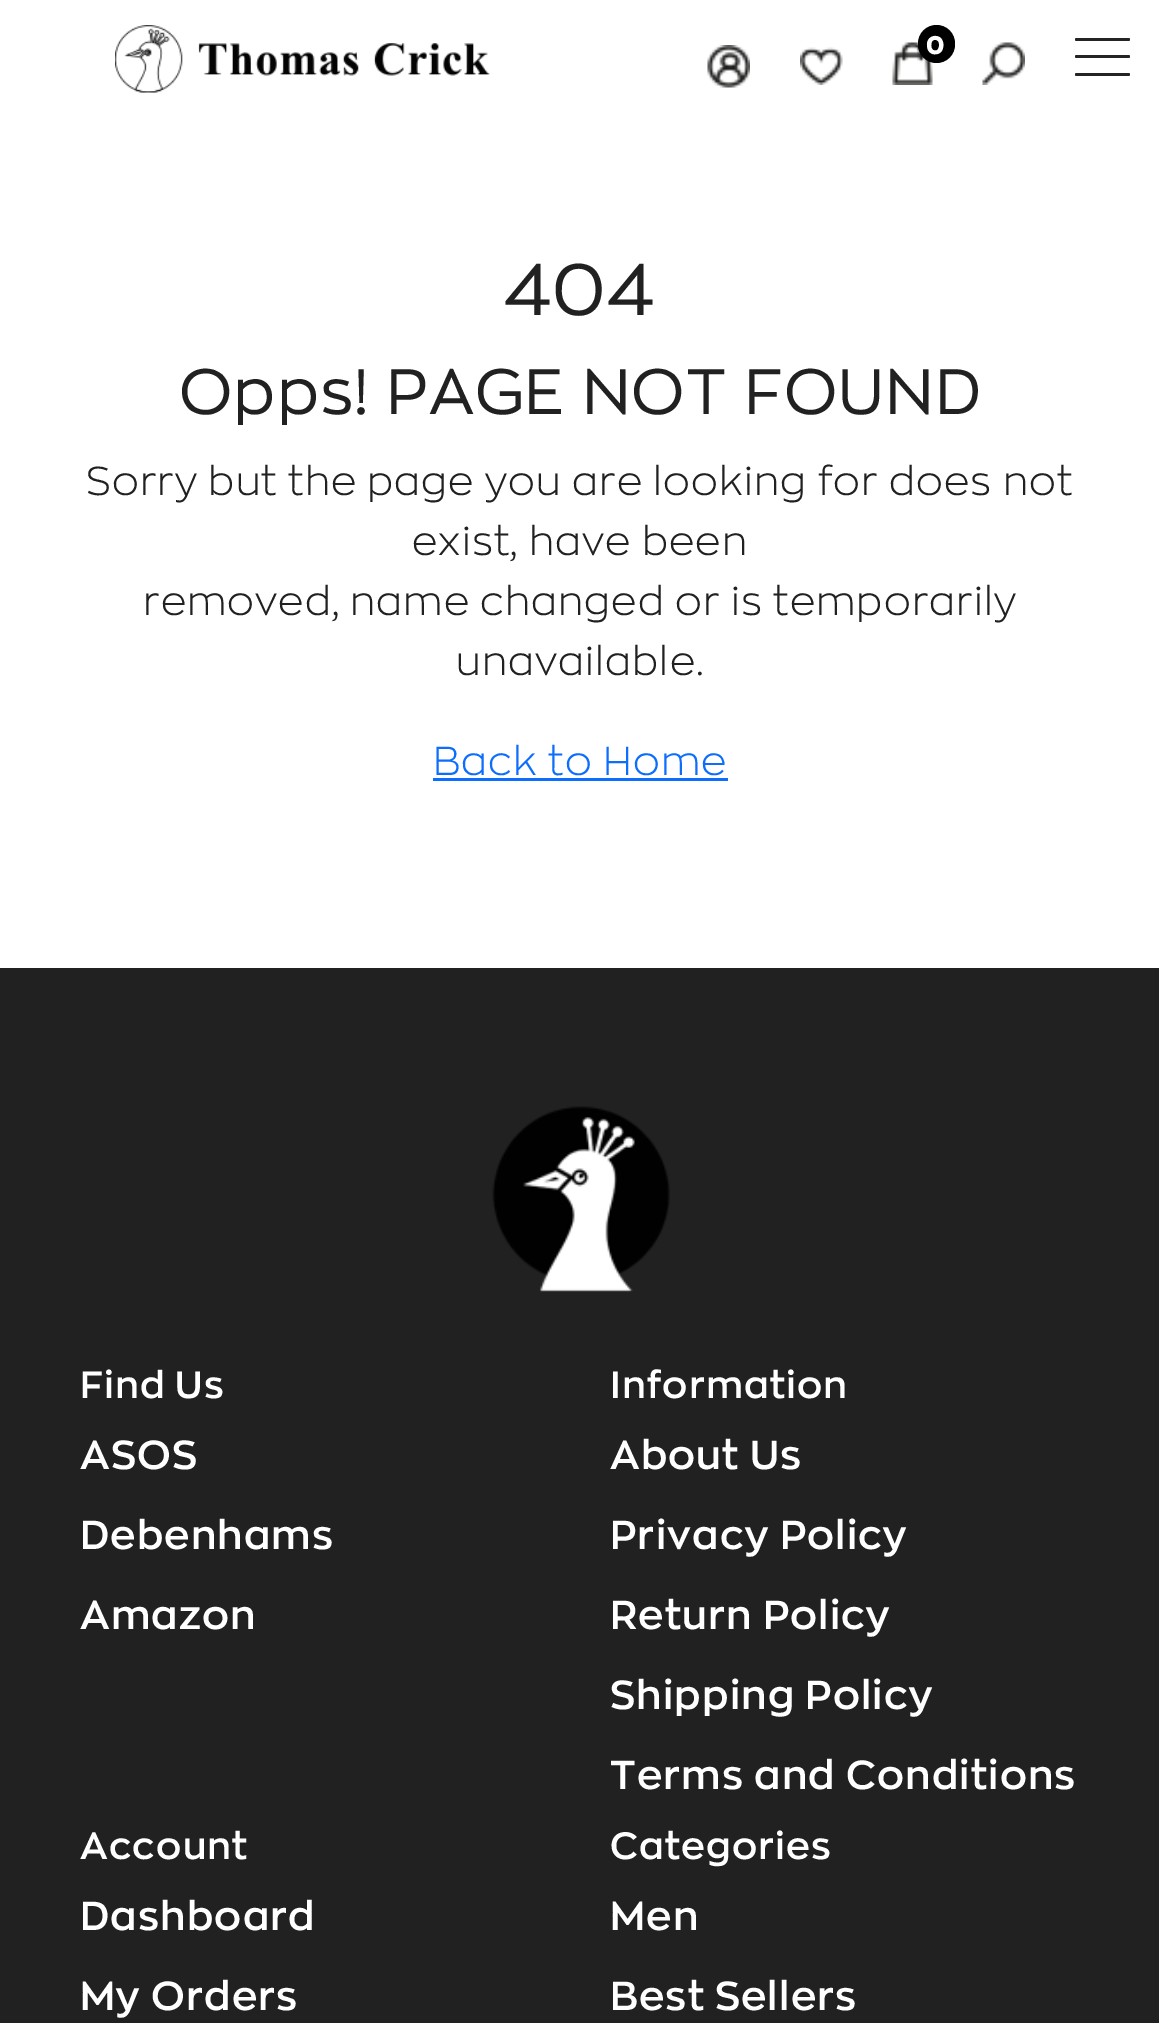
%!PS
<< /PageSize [1159 2023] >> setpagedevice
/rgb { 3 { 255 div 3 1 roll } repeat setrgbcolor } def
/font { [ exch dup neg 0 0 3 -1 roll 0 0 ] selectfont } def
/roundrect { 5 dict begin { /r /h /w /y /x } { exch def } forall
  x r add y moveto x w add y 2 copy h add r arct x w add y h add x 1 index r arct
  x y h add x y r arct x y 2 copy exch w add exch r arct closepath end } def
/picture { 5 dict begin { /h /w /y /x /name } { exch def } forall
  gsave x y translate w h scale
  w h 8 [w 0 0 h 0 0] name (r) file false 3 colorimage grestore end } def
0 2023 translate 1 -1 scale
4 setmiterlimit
255 255 255 rgb
0 0 1159 2023 rectfill
(img/1.rgb) 115 25 375 68 picture
(img/2.rgb) 707 45 43 43 picture
(img/3.rgb) 800 47 43 38 picture
(img/4.rgb) 892 42 41 43 picture
0 0 0 rgb
918 25 37 38 18.5 roundrect fill
(img/5.rgb) 982 42 43 43 picture
36 36 36 rgb
1075 38 55 3 1.5 roundrect fill
1075 55 55 3 1.5 roundrect fill
1075 73 55 3 1.5 roundrect fill
13 110 253 rgb
433 778 295 3 rectfill
33 33 33 rgb
0 968 1159 1055 rectfill
(img/6.rgb) 492 1106 178 186 picture
/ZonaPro-ExtraBold 25 font
255 255 255 rgb
926 54 moveto 1.2 0 (0) ashow
/ZonaPro-Regular 72 font
33 33 33 rgb
504 315 moveto 1.2 0 (404) ashow
/ZonaPro-Regular 63.5 font
179 414 moveto 1.2 0 (Opps! PAGE NOT FOUND) ashow
/ZonaPro-Light 40 font
86 495 moveto 1.2 0 (Sorry but the page you are looking for does not) ashow
412 555 moveto 1.2 0 (exist, have been) ashow
143 615 moveto 1.2 0 (removed, name changed or is temporarily) ashow
456 675 moveto 1.2 0 (unavailable.) ashow
13 110 253 rgb
433 775 moveto 1.2 0 (Back to Home) ashow
/ZonaPro-SemiBold 37.5 font
255 255 255 rgb
80 1398 moveto 1.2 0 (Find Us) ashow
/ZonaPro-SemiBold 40 font
80 1469 moveto 1.2 0 (ASOS) ashow
80 1549 moveto 1.2 0 (Debenhams) ashow
80 1629 moveto 1.2 0 (Amazon) ashow
/ZonaPro-SemiBold 37.5 font
610 1398 moveto 1.2 0 (Information) ashow
/ZonaPro-SemiBold 40 font
610 1469 moveto 1.2 0 (About Us) ashow
610 1549 moveto 1.2 0 (Privacy Policy) ashow
610 1629 moveto 1.2 0 (Return Policy) ashow
610 1709 moveto 1.2 0 (Shipping Policy) ashow
610 1789 moveto 1.2 0 (Terms and Conditions) ashow
/ZonaPro-SemiBold 37.5 font
80 1859 moveto 1.2 0 (Account) ashow
/ZonaPro-SemiBold 40 font
80 1930 moveto 1.2 0 (Dashboard) ashow
80 2010 moveto 1.2 0 (My Orders) ashow
/ZonaPro-SemiBold 37.5 font
610 1859 moveto 1.2 0 (Categories) ashow
/ZonaPro-SemiBold 40 font
610 1930 moveto 1.2 0 (Men) ashow
610 2010 moveto 1.2 0 (Best Sellers) ashow
showpage
